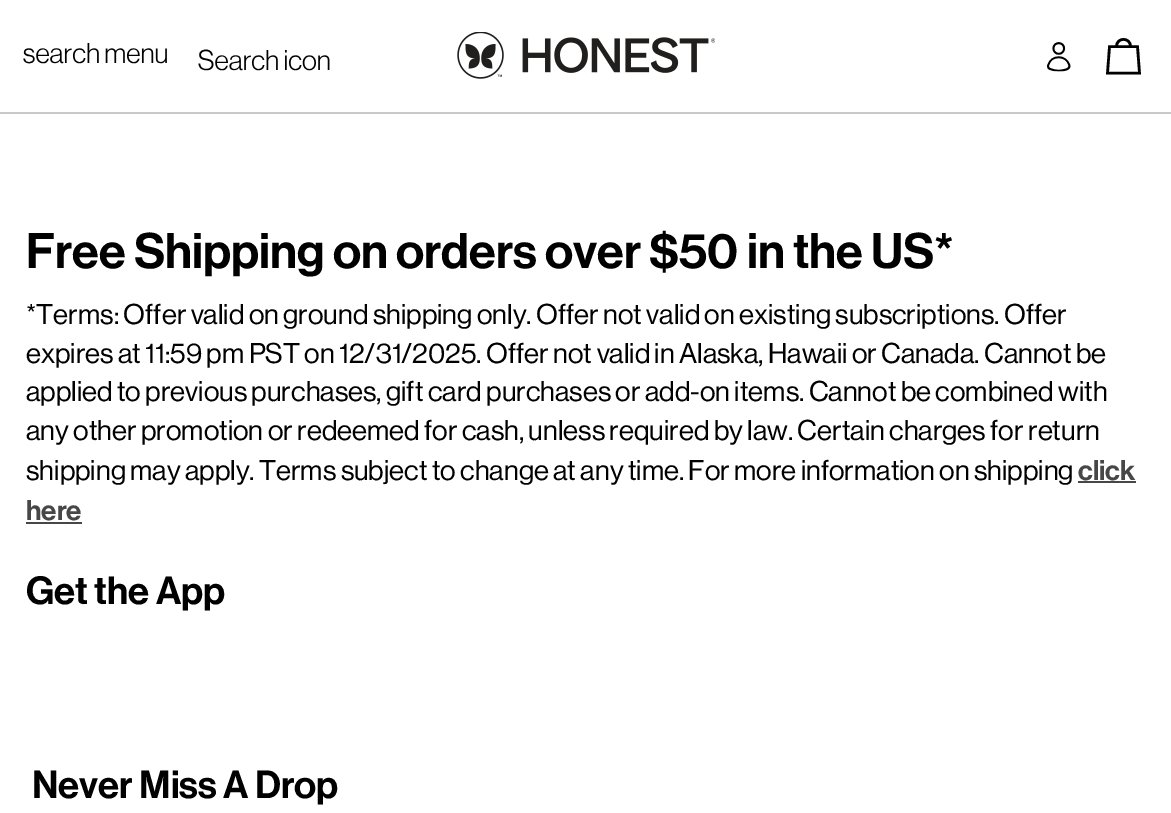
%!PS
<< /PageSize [1171 813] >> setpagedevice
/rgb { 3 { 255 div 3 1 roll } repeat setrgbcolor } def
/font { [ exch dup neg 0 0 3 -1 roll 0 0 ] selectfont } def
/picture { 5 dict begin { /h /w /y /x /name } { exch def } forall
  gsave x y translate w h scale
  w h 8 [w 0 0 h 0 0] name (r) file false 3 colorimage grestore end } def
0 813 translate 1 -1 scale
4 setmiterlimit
255 255 255 rgb
0 0 1171 813 rectfill
200 200 200 rgb
0 112 1171 2 rectfill
(img/1.rgb) 23 43 144 21 picture
(img/2.rgb) 198 49 132 22 picture
(img/3.rgb) 457 32 258 47 picture
(img/4.rgb) 1047 42 24 30 picture
0 0 0 rgb
2.6 setlinewidth
1130.5 46.5 moveto 1130.5 37 1116.5 37 1116.5 46.5 curveto 1107.5 73 moveto 1109.5 46.5 lineto 1137.5 46.5 lineto 1139.5 73 lineto closepath stroke
71 71 71 rgb
1078 481 58 2 rectfill
26 522 56 2 rectfill
/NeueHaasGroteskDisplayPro-Medium 49 font
0 0 0 rgb
26 268 moveto (Free Shipping on orders over $50 in the US*) show
/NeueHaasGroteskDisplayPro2-Medium 28 font
[
  [(*Terms: Offer valid on ground shipping only. Offer not valid on existing subscriptions. Offer) 26 324]
  [(expires at 11:59 pm PST on 12/31/2025. Offer not valid in Alaska, Hawaii or Canada. Cannot be) 26 363]
  [(applied to previous purchases, gift card purchases or add-on items. Cannot be combined with) 26 401]
  [(any other promotion or redeemed for cash, unless required by law. Certain charges for return) 26 440]
  [(shipping may apply. Terms subject to change at any time. For more information on shipping) 26 480]
] { aload pop moveto show } forall
/NeueHaasGroteskDisplayPro-Medium 28 font
71 71 71 rgb
1078 480 moveto (click) show
26 520 moveto (here) show
/NeueHaasGroteskDisplayPro-Medium 38.5 font
0 0 0 rgb
26 604 moveto (Get the App) show
32 798 moveto (Never Miss A Drop) show
showpage
